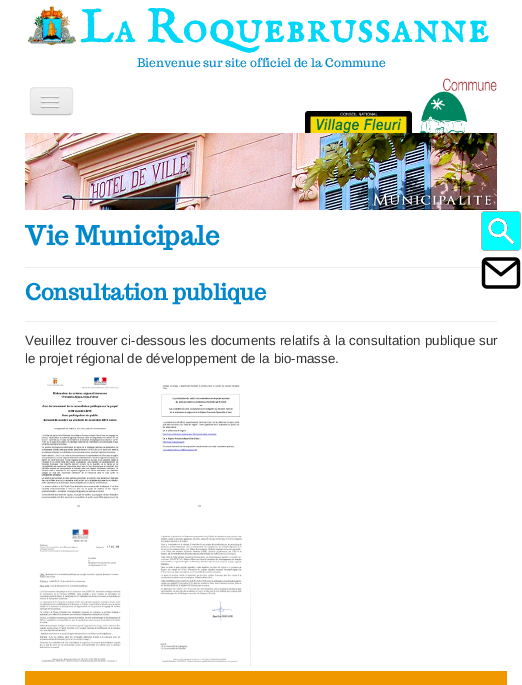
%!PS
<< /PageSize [522 685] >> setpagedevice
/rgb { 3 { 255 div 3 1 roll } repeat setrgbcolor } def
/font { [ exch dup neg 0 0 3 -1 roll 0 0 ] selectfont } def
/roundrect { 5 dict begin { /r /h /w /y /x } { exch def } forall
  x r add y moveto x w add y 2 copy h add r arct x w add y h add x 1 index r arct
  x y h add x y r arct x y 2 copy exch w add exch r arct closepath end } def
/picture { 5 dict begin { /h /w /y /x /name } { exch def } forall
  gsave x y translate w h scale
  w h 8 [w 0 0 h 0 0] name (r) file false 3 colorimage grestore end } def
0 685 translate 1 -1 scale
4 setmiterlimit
255 255 255 rgb
0 0 522 685 rectfill
(img/1.rgb) 27 5 462 48 picture
(img/2.rgb) 305 111 107 22 picture
(img/3.rgb) 420 78 77 55 picture
237 237 237 rgb
30 87 43 28 4 roundrect fill
gsave
30 87 43 28 4 roundrect clip newpath
gsave 30 88 moveto 73 88 lineto 73 114 lineto 30 114 lineto closepath clip newpath
<< /ShadingType 2 /ColorSpace /DeviceRGB /Coords [52 88 52 114] /Extend [true true] /Function << /FunctionType 2 /Domain [0 1] /C0 [0.949 0.949 0.949] /C1 [0.902 0.902 0.902] /N 1 >> >> shfill grestore
grestore
191 191 191 rgb
71.5 113.5 moveto 71 114 70 114.5 69 114.5 curveto 34 114.5 lineto 33 114.5 32 114 31.5 113.5 curveto stroke
230 230 230 rgb
31.5 113.5 moveto 29.5 111 30.5 103.5 30.5 101 curveto 30.5 89 28 87.5 40 87.5 curveto 63 87.5 lineto 75 87.5 72.5 89 72.5 101 curveto 72.5 103.5 73.5 111 71.5 113.5 curveto stroke
179 179 179 rgb
41 96.5 moveto 40 98.5 44.5 98 44.5 98 curveto 55.5 98 lineto 55.5 98 60 98.5 59 96.5 curveto 58 97.5 51.5 97 50 97 curveto 48.5 97 42 97.5 41 96.5 curveto closepath fill
245 245 245 rgb
41 95 18 2 1 roundrect fill
176 176 176 rgb
41 101.5 moveto 40 103.5 44.5 103 44.5 103 curveto 55.5 103 lineto 55.5 103 60 103.5 59 101.5 curveto 58 102.5 51.5 102 50 102 curveto 48.5 102 42 102.5 41 101.5 curveto closepath fill
245 245 245 rgb
41 100 18 2 1 roundrect fill
175 175 175 rgb
41 106.5 moveto 40 108.5 44.5 108 44.5 108 curveto 55.5 108 lineto 55.5 108 60 108.5 59 106.5 curveto 58 107.5 51.5 107 50 107 curveto 48.5 107 42 107.5 41 106.5 curveto closepath fill
245 245 245 rgb
41 105 18 2 1 roundrect fill
(img/4.rgb) 25 133 472 77 picture
238 238 238 rgb
25 267 455 1 rectfill
25 321 472 1 rectfill
(img/5.rgb) 41 377 78 130 picture
(img/6.rgb) 161 385 79 122 picture
(img/7.rgb) 39 529 91 137 picture
(img/8.rgb) 160 535 91 131 picture
(img/9.rgb) 481 211 40 40 picture
(img/10.rgb) 480 257 41 32 picture
239 152 0 rgb
25 671 482 14 rectfill
/Trocchi-Regular 12 font
0 136 204 rgb
137 67 moveto (Bienvenue sur site officiel de la Commune) show
/Trocchi-Bold 26 font
25 245 moveto (Vie Municipale) show
/Trocchi-Bold 22 font
25 300 moveto (Consultation publique) show
/LiberationSans-Regular 13.35 font
51 51 51 rgb
25 345 moveto 0.4 0 32 (Veuillez trouver ci-dessous les documents relatifs à la consultation publique sur) widthshow
25 363 moveto (le projet régional de développement de la bio-masse.) show
showpage
